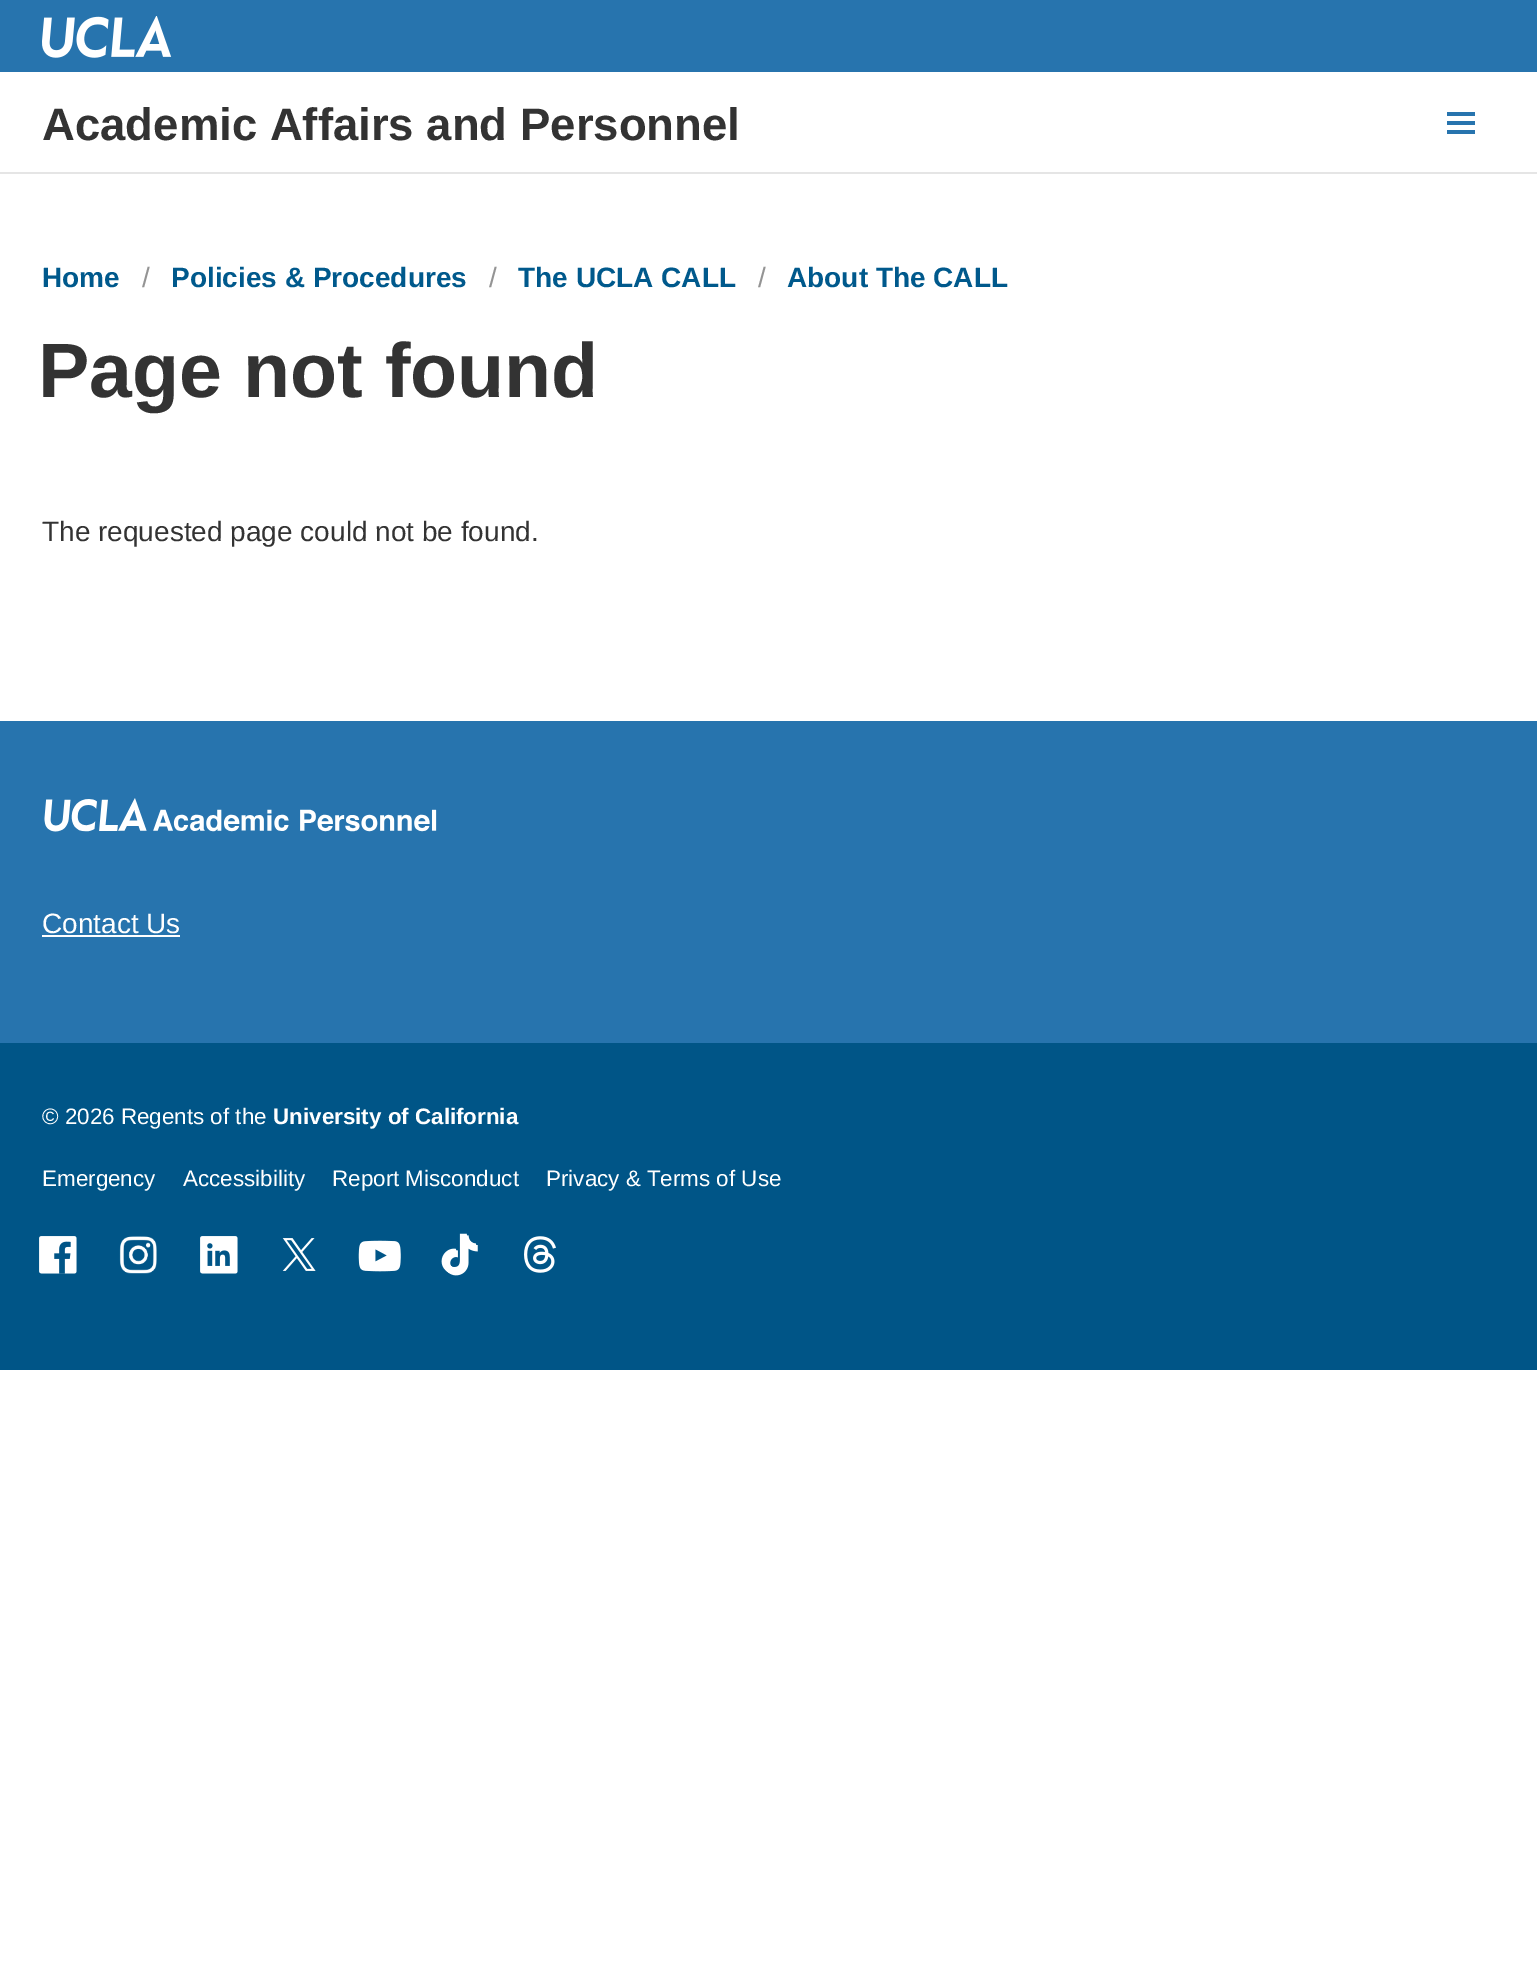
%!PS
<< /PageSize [1537 1961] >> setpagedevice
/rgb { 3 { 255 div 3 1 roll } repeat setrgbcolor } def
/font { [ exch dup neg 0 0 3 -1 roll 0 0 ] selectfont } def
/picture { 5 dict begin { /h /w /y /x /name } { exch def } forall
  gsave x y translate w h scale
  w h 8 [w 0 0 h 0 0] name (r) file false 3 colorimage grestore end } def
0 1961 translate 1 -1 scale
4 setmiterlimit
255 255 255 rgb
0 0 1537 1961 rectfill
229 229 229 rgb
0 172 1537 2 rectfill
39 116 174 rgb
0 0 1537 72 rectfill
(img/1.rgb) 42 16 130 42 picture
[
  [1447 121 28 4 39 116 174]
  [1447 112 28 4 39 116 174]
  [1447 130 28 4 39 116 174]
  [0 721 1537 322 39 116 174]
] { aload pop rgb rectfill } forall
(img/2.rgb) 44 798 393 34 picture
255 255 255 rgb
42 935 138 2 rectfill
0 85 135 rgb
0 1043 1537 327 rectfill
(img/3.rgb) 39 1236 38 38 picture
(img/4.rgb) 119 1236 38 38 picture
(img/5.rgb) 200 1236 38 38 picture
(img/6.rgb) 282 1238 34 33 picture
(img/7.rgb) 358 1240 43 32 picture
(img/8.rgb) 441 1233 37 43 picture
(img/9.rgb) 524 1236 32 37 picture
/LiberationSans-Bold 45.5 font
51 51 51 rgb
42 140 moveto (Academic Affairs and Personnel) show
/LiberationSans-Bold 28 font
0 89 140 rgb
42 287 moveto (Home) show
/LiberationSans-Regular 28 font
148 148 148 rgb
142 287 moveto (/) show
/LiberationSans-Bold 28 font
0 89 140 rgb
171 287 moveto (Policies & Procedures) show
/LiberationSans-Regular 28 font
148 148 148 rgb
489 287 moveto (/) show
/LiberationSans-Bold 28 font
0 89 140 rgb
518 287 moveto (The UCLA CALL) show
/LiberationSans-Regular 28 font
148 148 148 rgb
758 287 moveto (/) show
/LiberationSans-Bold 28 font
0 89 140 rgb
787 287 moveto (About The CALL) show
/LiberationSans-Bold 77 font
51 51 51 rgb
38 397 moveto (Page not found) show
/LiberationSans-Regular 28 font
42 541 moveto (The requested page could not be found.) show
255 255 255 rgb
42 933 moveto (Contact Us) show
/LiberationSans-Regular 22.4 font
42 1124 moveto (© 2026 Regents of the) show
/LiberationSans-Bold 22.4 font
273 1124 moveto (University of California) show
/LiberationSans-Regular 22.4 font
[
  [(Emergency) 42 1186]
  [(Accessibility) 183 1186]
  [(Report Misconduct) 332 1186]
  [(Privacy & Terms of Use) 546 1186]
] { aload pop moveto show } forall
showpage
